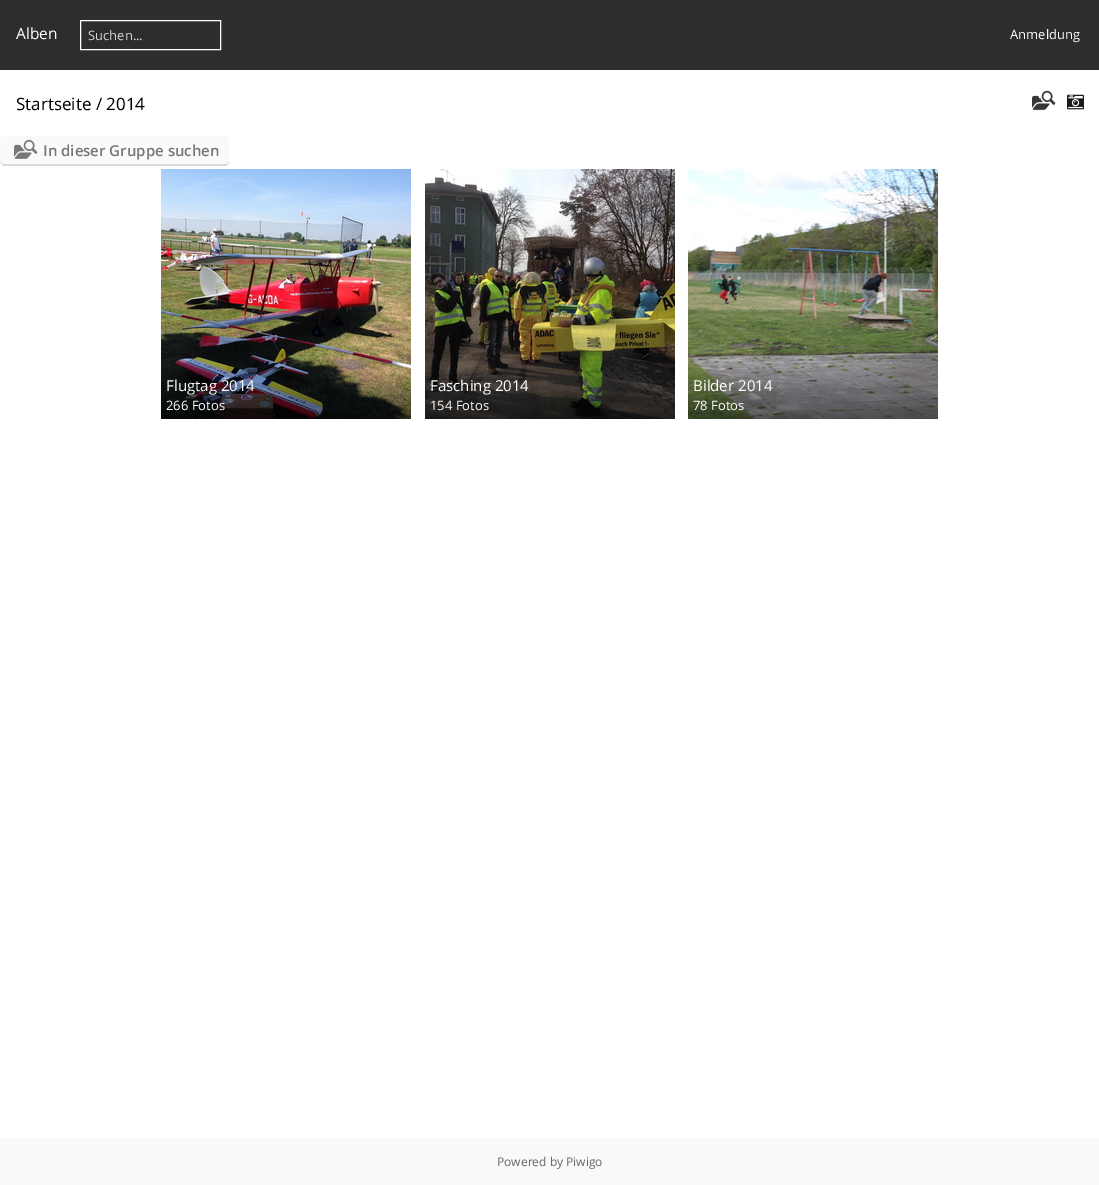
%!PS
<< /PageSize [1099 1185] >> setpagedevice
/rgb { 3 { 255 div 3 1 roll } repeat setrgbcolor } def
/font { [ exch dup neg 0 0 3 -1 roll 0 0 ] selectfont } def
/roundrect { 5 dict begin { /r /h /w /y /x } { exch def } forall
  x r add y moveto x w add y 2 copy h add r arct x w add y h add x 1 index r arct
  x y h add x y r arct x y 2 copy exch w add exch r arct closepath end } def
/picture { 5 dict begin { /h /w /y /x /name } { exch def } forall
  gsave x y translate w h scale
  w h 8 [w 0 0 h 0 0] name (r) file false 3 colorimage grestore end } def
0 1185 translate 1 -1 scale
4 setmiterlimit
255 255 255 rgb
0 0 1099 1185 rectfill
45 45 45 rgb
0 0 1099 70 rectfill
255 255 255 rgb
80.5 20.5 140 29 rectstroke
(img/1.rgb) 1032 90 24 20 picture
(img/2.rgb) 1067 94 17 16 picture
219 219 219 rgb
0 159 moveto 0 162 1 166 5 166 curveto 225 166 lineto 229 165 229 162 229 159 curveto 229 162 227 164 224 164 curveto 5 164 lineto 2 164 0 162 0 159 curveto closepath fill
250 250 250 rgb
0 136 229 28 5 roundrect fill
(img/3.rgb) 14 139 24 20 picture
(img/4.rgb) 161 169 250 250 picture
(img/5.rgb) 425 169 250 250 picture
(img/6.rgb) 688 169 250 250 picture
249 249 249 rgb
0 1138 1099 47 rectfill
/OpenSans-Regular 15.5 font
255 255 255 rgb
16 39 moveto (Alben) show
/OpenSans-Regular 13 font
214 214 214 rgb
88 40 moveto (Suchen...) show
255 255 255 rgb
1010 39 moveto (Anmeldung) show
/OpenSans-Regular 17 font
0 0 0 rgb
16 110 moveto (Startseite / 2014) show
/OpenSans-SemiBold 15 font
119 119 119 rgb
43 156 moveto (In dieser Gruppe suchen) show
/OpenSans-Regular 15 font
255 255 255 rgb
166 391 moveto (Flugtag 2014) show
/OpenSans-Regular 13 font
166 410 moveto (266 Fotos) show
/OpenSans-Regular 15 font
430 391 moveto (Fasching 2014) show
/OpenSans-Regular 13 font
430 410 moveto (154 Fotos) show
/OpenSans-Regular 15 font
693 391 moveto (Bilder 2014) show
/OpenSans-Regular 13 font
693 410 moveto (78 Fotos) show
/OpenSans-Regular 12 font
102 102 102 rgb
497 1166 moveto (Powered by Piwigo) show
showpage
